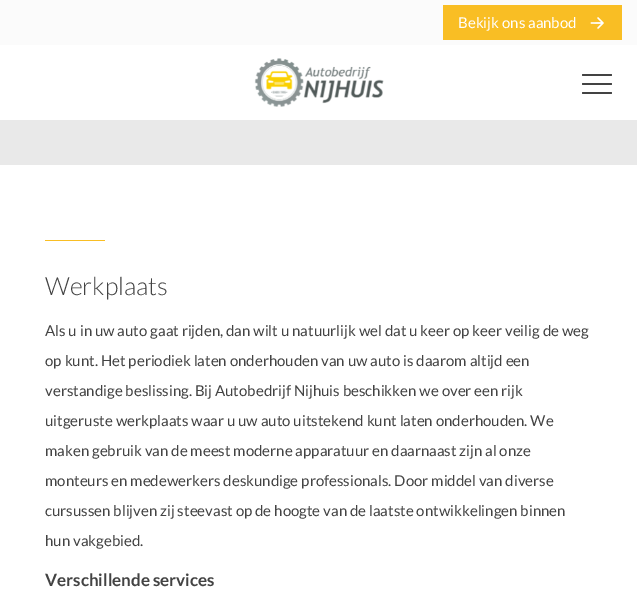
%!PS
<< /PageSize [637 591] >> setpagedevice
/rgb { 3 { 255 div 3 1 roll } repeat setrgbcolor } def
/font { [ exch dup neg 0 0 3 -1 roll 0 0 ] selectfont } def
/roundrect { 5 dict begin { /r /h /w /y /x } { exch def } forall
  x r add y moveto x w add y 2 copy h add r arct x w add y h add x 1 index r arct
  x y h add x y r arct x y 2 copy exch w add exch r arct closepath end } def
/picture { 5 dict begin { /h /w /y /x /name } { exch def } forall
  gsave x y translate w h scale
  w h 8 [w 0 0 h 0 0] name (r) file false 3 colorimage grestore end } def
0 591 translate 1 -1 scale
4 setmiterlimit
233 233 233 rgb
0 0 637 591 rectfill
251 251 251 rgb
0 0 637 45 rectfill
249 190 36 rgb
443 5 179 35 rectfill
(img/1.rgb) 590 17 14 12 picture
255 255 255 rgb
0 45 637 75 rectfill
(img/2.rgb) 254 58 130 49 picture
67 67 67 rgb
582 83 30 2 1 roundrect fill
582 74 30 2 1 roundrect fill
582 92 30 2 1 roundrect fill
255 255 255 rgb
0 165 637 426 rectfill
249 190 36 rgb
45 240 60 1 rectfill
/Lato-Regular 15 font
255 255 255 rgb
458 28 moveto (Bekijk ons aanbod) show
/Lato-Light 25 font
67 67 67 rgb
45 295 moveto (Werkplaats) show
/Lato-Regular 15 font
[
  [(Als u in uw auto gaat rijden, dan wilt u natuurlijk wel dat u keer op keer veilig de weg) 45 336]
  [(op kunt. Het periodiek laten onderhouden van uw auto is daarom altijd een) 45 366]
  [(verstandige beslissing. Bij Autobedrijf Nijhuis beschikken we over een rijk) 45 396]
  [(uitgeruste werkplaats waar u uw auto uitstekend kunt laten onderhouden. We) 45 426]
  [(maken gebruik van de meest moderne apparatuur en daarnaast zijn al onze) 45 456]
  [(monteurs en medewerkers deskundige professionals. Door middel van diverse) 45 486]
  [(cursussen blijven zij steevast op de hoogte van de laatste ontwikkelingen binnen) 45 516]
  [(hun vakgebied.) 45 546]
] { aload pop moveto show } forall
/Lato-Bold 17 font
45 586 moveto (Verschillende services) show
showpage
